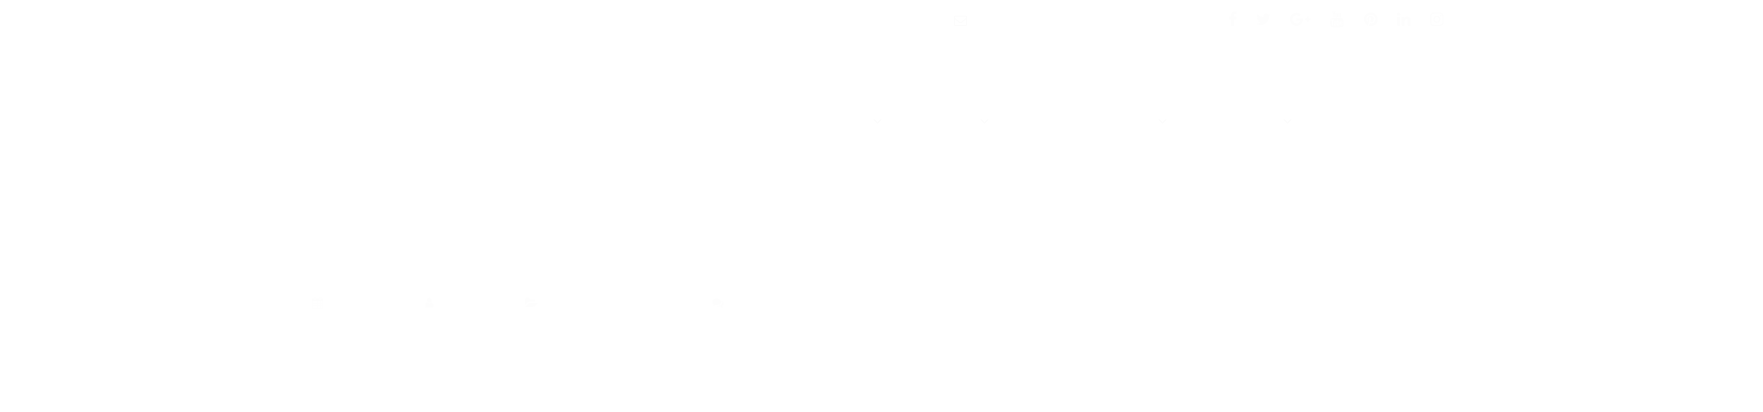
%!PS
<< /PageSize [1763 412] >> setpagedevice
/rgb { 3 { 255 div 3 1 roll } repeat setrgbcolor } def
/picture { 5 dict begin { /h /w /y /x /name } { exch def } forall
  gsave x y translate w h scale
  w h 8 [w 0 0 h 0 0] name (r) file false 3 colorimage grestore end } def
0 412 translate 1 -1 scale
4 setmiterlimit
255 255 255 rgb
0 0 1763 412 rectfill
(img/1.rgb) 954 15 13 11 picture
(img/2.rgb) 1228 11 9 16 picture
(img/3.rgb) 1256 13 15 12 picture
(img/4.rgb) 1290 12 21 14 picture
(img/5.rgb) 1330 11 14 17 picture
(img/6.rgb) 1364 12 14 15 picture
(img/7.rgb) 1397 12 14 14 picture
(img/8.rgb) 1430 12 14 15 picture
(img/9.rgb) 873 119 9 5 picture
(img/9.rgb) 980 119 9 5 picture
(img/9.rgb) 1158 119 9 5 picture
(img/9.rgb) 1283 119 9 5 picture
(img/10.rgb) 312 296 12 13 picture
(img/11.rgb) 425 297 9 11 picture
(img/12.rgb) 525 297 13 10 picture
(img/13.rgb) 712 298 12 10 picture
showpage
